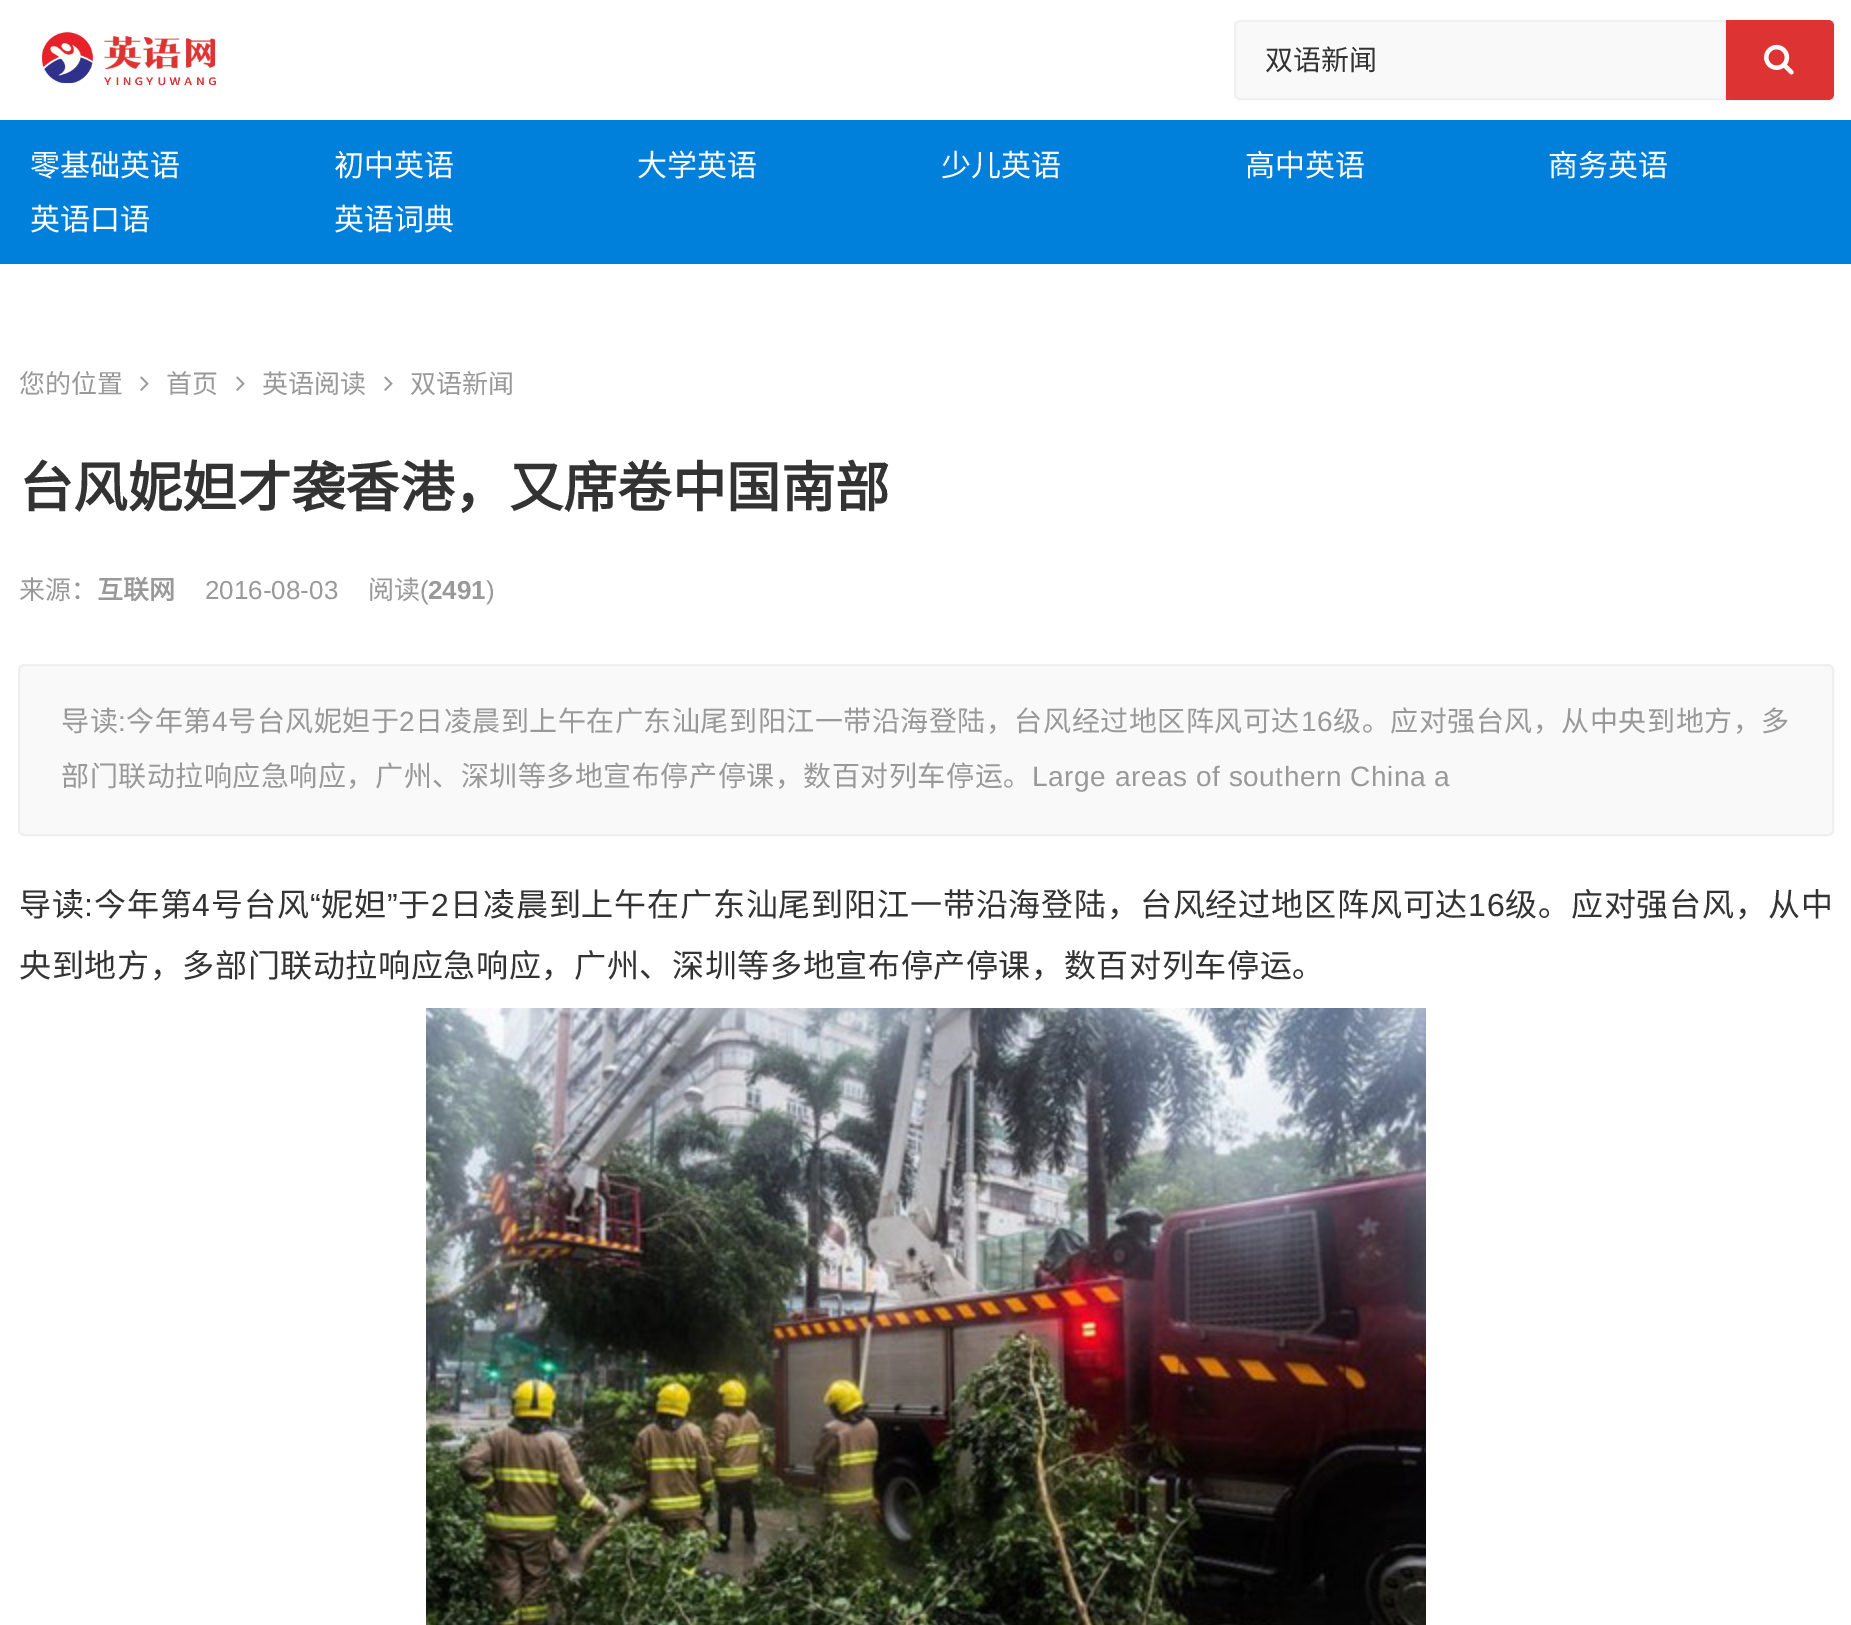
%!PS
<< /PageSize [1851 1625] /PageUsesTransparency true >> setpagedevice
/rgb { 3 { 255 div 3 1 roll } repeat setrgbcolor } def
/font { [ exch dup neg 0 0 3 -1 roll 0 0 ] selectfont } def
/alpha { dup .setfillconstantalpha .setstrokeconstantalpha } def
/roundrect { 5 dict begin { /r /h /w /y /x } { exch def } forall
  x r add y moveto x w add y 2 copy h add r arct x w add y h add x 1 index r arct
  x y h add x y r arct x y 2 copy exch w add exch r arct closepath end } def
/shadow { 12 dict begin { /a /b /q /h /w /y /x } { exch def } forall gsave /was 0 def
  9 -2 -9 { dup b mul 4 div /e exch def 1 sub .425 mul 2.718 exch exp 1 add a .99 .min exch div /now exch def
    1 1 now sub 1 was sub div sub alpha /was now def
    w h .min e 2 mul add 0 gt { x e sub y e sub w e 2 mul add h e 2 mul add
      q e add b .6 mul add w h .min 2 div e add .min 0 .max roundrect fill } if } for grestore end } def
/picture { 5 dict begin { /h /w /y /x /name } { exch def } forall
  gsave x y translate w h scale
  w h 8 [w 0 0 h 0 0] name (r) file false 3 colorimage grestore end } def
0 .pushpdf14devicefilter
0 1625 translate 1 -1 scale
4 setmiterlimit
255 255 255 rgb
0 0 1851 1625 rectfill
(img/1.rgb) 42 32 174 53 picture
249 249 249 rgb
1240 21 moveto 1833 21 lineto 1833 99 lineto 1240 99 lineto 1237 99 1235 97 1235 94 curveto 1235 26 lineto 1235 23 1237 21 1240 21 curveto closepath gsave fill grestore
240 240 240 rgb
2 setlinewidth
stroke
0 0 0 rgb
1726 20 108 80 6 3 0.05 shadow
221 51 51 rgb
1726 20 moveto 1828 20 lineto 1831.5 20 1834 22.5 1834 26 curveto 1834 94 lineto 1834 97.5 1831.5 100 1828 100 curveto 1726 100 lineto closepath fill
(img/2.rgb) 1764 44 30 31 picture
0 127 219 rgb
0 120 1851 144 rectfill
(img/3.rgb) 140 376 9 15 picture
(img/3.rgb) 236 376 9 15 picture
(img/3.rgb) 384 376 9 15 picture
249 249 249 rgb
19 665 1814 170 5 roundrect gsave fill grestore
239 239 239 rgb
stroke
(img/4.rgb) 426 1008 1000 617 picture
/NotoSansCJKSC-Regular 28 font
51 51 51 rgb
1265 70 moveto (双语新闻) show
/NotoSansCJKSC-Regular 30 font
255 255 255 rgb
[
  [(零基础英语) 30 176]
  [(初中英语) 334 176]
  [(大学英语) 637 176]
  [(少儿英语) 941 176]
  [(高中英语) 1245 176]
  [(商务英语) 1548 176]
  [(英语口语) 30 230]
  [(英语词典) 334 230]
] { aload pop moveto show } forall
/NotoSansCJKSC-Regular 26 font
153 153 153 rgb
[
  [(您的位置) 19 393]
  [(首页) 166 393]
  [(英语阅读) 262 393]
  [(双语新闻) 410 393]
] { aload pop moveto show } forall
/NotoSansCJKSC-Bold 54.4 font
51 51 51 rgb
19 507 moveto (台风妮妲才袭香港，又席卷中国南部) show
/NotoSansCJKSC-Regular 26 font
153 153 153 rgb
19 599 moveto (来源：) show
/NotoSansCJKSC-Bold 26 font
97 599 moveto (互联网) show
/LiberationSans-Regular 26 font
205 599 moveto (2016-08-03) show
/NotoSansCJKSC-Regular 26 font
368 599 moveto (阅读) show
/LiberationSans-Regular 26 font
420 599 moveto (\() show
/LiberationSans-Bold 26 font
428 599 moveto (2491) show
/LiberationSans-Regular 26 font
486 599 moveto (\)) show
/NotoSansCJKSC-Regular 28 font
61 731 moveto 0.55 0 (导读) ashow
/LiberationSans-Regular 28 font
118 731 moveto 0.55 0 (:) ashow
/NotoSansCJKSC-Regular 28 font
126 731 moveto 0.55 0 (今年第) ashow
/LiberationSans-Regular 28 font
212 731 moveto 0.55 0 (4) ashow
/NotoSansCJKSC-Regular 28 font
228 731 moveto 0.55 0 (号台风妮妲于) ashow
/LiberationSans-Regular 28 font
399 731 moveto 0.55 0 (2) ashow
/NotoSansCJKSC-Regular 28 font
415 731 moveto 0.55 0 (日凌晨到上午在广东汕尾到阳江一带沿海登陆，台风经过地区阵风可达) ashow
/LiberationSans-Regular 28 font
1301 731 moveto 0.55 0 (16) ashow
/NotoSansCJKSC-Regular 28 font
1333 731 moveto 0.55 0 (级。应对强台风，从中央到地方，多) ashow
61 786 moveto 0.55 0 (部门联动拉响应急响应，广州、深圳等多地宣布停产停课，数百对列车停运。) ashow
/LiberationSans-Regular 28 font
1032 786 moveto 0.55 0 (Large areas of southern China a) ashow
/NotoSansCJKSC-Regular 32 font
51 51 51 rgb
19 916 moveto 0.85 0 (导读) ashow
94 916 moveto 0.85 0 (今年第) ashow
/LiberationSans-Regular 32 font
192 916 moveto 0.85 0 (4) ashow
/NotoSansCJKSC-Regular 32 font
211 916 moveto 0.85 0 (号台风) ashow
/LiberationSans-Regular 32 font
310 916 moveto 0.85 0 (“) ashow
/NotoSansCJKSC-Regular 32 font
321 916 moveto 0.85 0 (妮妲) ashow
/LiberationSans-Regular 32 font
387 916 moveto 0.85 0 (”) ashow
/NotoSansCJKSC-Regular 32 font
398 916 moveto 0.85 0 (于) ashow
/LiberationSans-Regular 32 font
431 916 moveto 0.85 0 (2) ashow
/NotoSansCJKSC-Regular 32 font
450 916 moveto 0.85 0 (日凌晨到上午在广东汕尾到阳江一带沿海登陆，台风经过地区阵风可达) ashow
/LiberationSans-Regular 32 font
1468 916 moveto 0.85 0 (16) ashow
/NotoSansCJKSC-Regular 32 font
1505 916 moveto 0.85 0 (级。应对强台风，从中) ashow
/LiberationSans-Regular 32 font
84 916 moveto 0.85 0 (:) ashow
/NotoSansCJKSC-Regular 32 font
19 977 moveto 0.65 0 (央到地方，多部门联动拉响应急响应，广州、深圳等多地宣布停产停课，数百对列车停运。) ashow
.poppdf14devicefilter showpage
